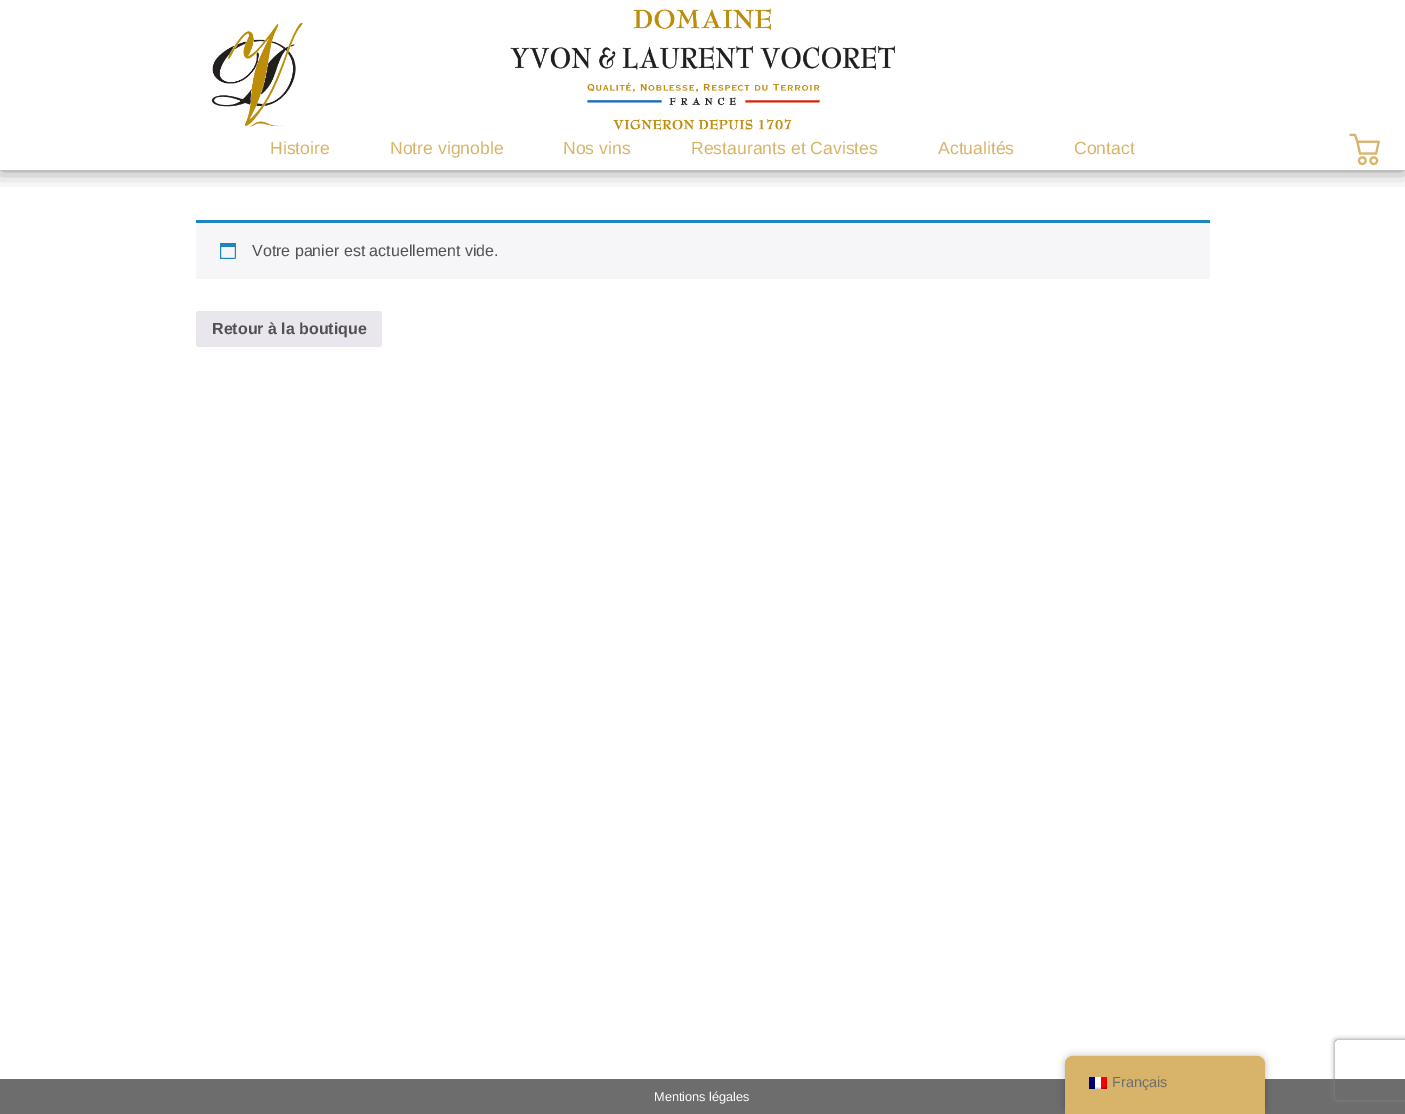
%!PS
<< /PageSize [1405 1114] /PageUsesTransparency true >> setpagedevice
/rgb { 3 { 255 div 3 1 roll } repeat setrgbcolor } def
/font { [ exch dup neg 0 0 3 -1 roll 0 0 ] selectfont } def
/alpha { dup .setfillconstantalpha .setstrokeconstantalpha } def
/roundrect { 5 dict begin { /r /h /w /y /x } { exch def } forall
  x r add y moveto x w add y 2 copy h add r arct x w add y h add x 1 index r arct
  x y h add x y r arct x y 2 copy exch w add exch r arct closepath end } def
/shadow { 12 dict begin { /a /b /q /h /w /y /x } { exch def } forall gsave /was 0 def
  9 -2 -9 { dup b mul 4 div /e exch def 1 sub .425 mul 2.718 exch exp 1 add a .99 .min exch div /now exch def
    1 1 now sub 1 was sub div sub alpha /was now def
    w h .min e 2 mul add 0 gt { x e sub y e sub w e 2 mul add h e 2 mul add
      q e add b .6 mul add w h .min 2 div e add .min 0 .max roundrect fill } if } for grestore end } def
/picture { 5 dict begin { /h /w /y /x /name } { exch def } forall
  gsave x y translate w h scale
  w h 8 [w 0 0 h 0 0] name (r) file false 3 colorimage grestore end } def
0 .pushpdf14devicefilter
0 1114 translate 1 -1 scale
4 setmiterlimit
255 255 255 rgb
0 0 1405 1114 rectfill
gsave
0 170 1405 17 rectclip
0 0 0 rgb
0 0 1405 170 0 10 0.5 shadow
grestore
(img/1.rgb) 211 22 92 105 picture
(img/2.rgb) 510 8 386 123 picture
(img/3.rgb) 1349 133 31 33 picture
246 245 248 rgb
196 223 1014 56 rectfill
30 133 190 rgb
196 220 1014 3 rectfill
(img/4.rgb) 220 243 16 16 picture
233 230 237 rgb
196 311 186 36 3 roundrect fill
109 109 109 rgb
0 1079 1405 35 rectfill
0 0 0 rgb
1065 1056 200 58 8 4 0.25 shadow
216 180 106 rgb
1073 1056 moveto 1257 1056 lineto 1261.5 1056 1265 1059.5 1265 1064 curveto 1265 1114 lineto 1065 1114 lineto 1065 1064 lineto 1065 1059.5 1068.5 1056 1073 1056 curveto closepath fill
(img/5.rgb) 1089 1077 18 12 picture
gsave
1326 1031 moveto 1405 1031 lineto 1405 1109 lineto 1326 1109 lineto closepath 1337 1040 moveto 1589 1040 lineto 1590 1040 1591 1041 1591 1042 curveto 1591 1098 lineto 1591 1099 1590 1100 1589 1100 curveto 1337 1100 lineto 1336 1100 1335 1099 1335 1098 curveto 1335 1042 lineto 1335 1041 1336 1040 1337 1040 curveto closepath eoclip newpath
128 128 128 rgb
1335 1040 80 60 2 2.5 1 shadow
grestore
/LiberationSans-Regular 17.6 font
[
  [(Histoire) 270 154]
  [(Notre vignoble) 390 154]
  [(Nos vins) 563 154]
  [(Restaurants et Cavistes) 691 154]
  [(Actualités) 938 154]
  [(Contact) 1074 154]
] { aload pop moveto show } forall
/LiberationSans-Regular 16 font
81 81 81 rgb
252 256 moveto (Votre panier est actuellement vide.) show
/LiberationSans-Bold 16 font
212 334 moveto (Retour à la boutique) show
/LiberationSans-Regular 14.5 font
109 109 109 rgb
1112 1087 moveto (Français) show
/LiberationSans-Regular 12.75 font
255 255 255 rgb
654 1101 moveto (Mentions légales) show
.poppdf14devicefilter showpage
